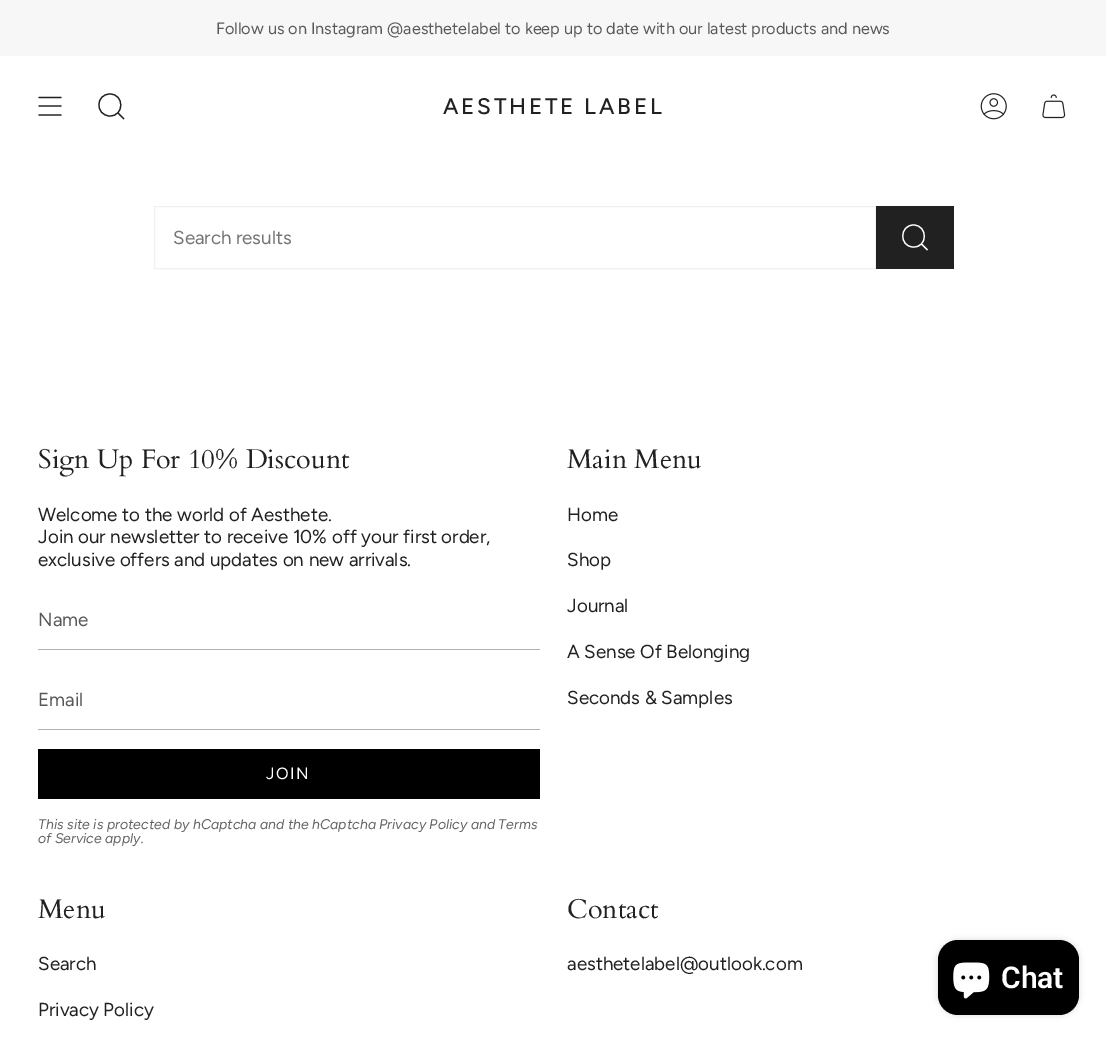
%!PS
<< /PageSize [1106 1041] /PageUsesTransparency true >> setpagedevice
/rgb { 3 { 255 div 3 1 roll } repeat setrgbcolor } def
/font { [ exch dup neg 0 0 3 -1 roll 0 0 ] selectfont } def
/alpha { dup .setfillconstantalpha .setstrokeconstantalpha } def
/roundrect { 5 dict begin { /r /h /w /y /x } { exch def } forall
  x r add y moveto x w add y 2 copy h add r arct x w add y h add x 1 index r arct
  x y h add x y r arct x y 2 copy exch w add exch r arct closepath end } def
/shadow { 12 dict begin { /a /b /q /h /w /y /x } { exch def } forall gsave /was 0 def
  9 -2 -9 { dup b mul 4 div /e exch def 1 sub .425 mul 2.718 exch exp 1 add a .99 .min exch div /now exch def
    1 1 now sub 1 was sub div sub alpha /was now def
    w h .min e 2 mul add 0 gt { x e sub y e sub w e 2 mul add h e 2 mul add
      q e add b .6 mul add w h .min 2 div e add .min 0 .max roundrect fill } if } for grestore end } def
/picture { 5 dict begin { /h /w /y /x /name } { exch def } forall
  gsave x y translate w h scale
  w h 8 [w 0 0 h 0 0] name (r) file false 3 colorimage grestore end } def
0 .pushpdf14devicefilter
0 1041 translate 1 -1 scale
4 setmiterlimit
255 255 255 rgb
0 0 1106 1041 rectfill
247 247 247 rgb
0 0 1106 56 rectfill
33 33 33 rgb
1.2 setlinewidth
1 setlinecap
1 setlinejoin
39 97.5 moveto 61 97.5 lineto 39 106 moveto 61 106 lineto 39 115 moveto 61 115 lineto stroke
0 setlinecap
0 setlinejoin
110 94 moveto 124.5 94 124.5 116.5 109.5 116 curveto 95 115 95.5 94 110 94 curveto closepath 117.5 112.5 moveto 124 119 lineto stroke
(img/1.rgb) 980 93 27 27 picture
(img/2.rgb) 1042 94 24 25 picture
240 240 240 rgb
1 setlinewidth
154.5 206.5 721 62 rectstroke
33 33 33 rgb
876 206 78 63 rectfill
255 255 255 rgb
1.2 setlinewidth
913.5 225 moveto 928 225 928 248 913 247 curveto 899 246.5 899.5 225 913.5 225 curveto closepath 921.5 244 moveto 927.5 250 lineto stroke
[
  [38 649 502 1 177 177 177]
  [38 729 502 1 177 177 177]
  [38 749 502 50 0 0 0]
] { aload pop rgb rectfill } forall
938 940 141 75 20 3 0.15 shadow
938 940 141 75 20 roundrect fill
(img/3.rgb) 953 962 37 37 picture
/Figtree-Regular 16.25 font
89 89 89 rgb
216 34 moveto (Follow us on Instagram @aesthetelabel to keep up to date with our latest products and news) show
/Figtree-Medium 22.5 font
33 33 33 rgb
443 114 moveto 2.75 0 (AESTHETE LABEL) ashow
/Figtree-Regular 18.75 font
117 117 117 rgb
173 244 moveto (Search results) show
/Cardo-Regular 27 font
33 33 33 rgb
38 468 moveto (Sign Up For 10% Discount) show
/Figtree-Regular 18.75 font
[
  [(Welcome to the world of Aesthete.) 38 521]
  [(Join our newsletter to receive 10% off your first order,) 38 543]
  [(exclusive offers and updates on new arrivals.) 38 566]
] { aload pop moveto show } forall
89 89 89 rgb
38 626 moveto (Name) show
38 706 moveto (Email) show
/Figtree-Regular 16.25 font
255 255 255 rgb
266 779 moveto 1.5 0 (JOIN) ashow
/Figtree-Italic 14.05 font
100 100 100 rgb
38 829 moveto (This site is protected by hCaptcha and the hCaptcha Privacy Policy and Terms) show
38 843 moveto (of Service apply.) show
/Cardo-Regular 27 font
33 33 33 rgb
567 468 moveto (Main Menu) show
/Figtree-Regular 18.75 font
[
  [(Home) 567 521]
  [(Shop) 567 566]
  [(Journal) 567 612]
  [(A Sense Of Belonging) 567 658]
  [(Seconds & Samples) 567 704]
] { aload pop moveto show } forall
/Cardo-Regular 27 font
38 918 moveto (Menu) show
/Figtree-Regular 18.75 font
38 970 moveto (Search) show
38 1016 moveto (Privacy Policy) show
/Cardo-Regular 27 font
567 918 moveto (Contact) show
/Figtree-Regular 18.75 font
567 970 moveto (aesthetelabel@outlook.com) show
/Roboto-SemiBold 30 font
255 255 255 rgb
1001 988 moveto (Chat) show
.poppdf14devicefilter showpage
